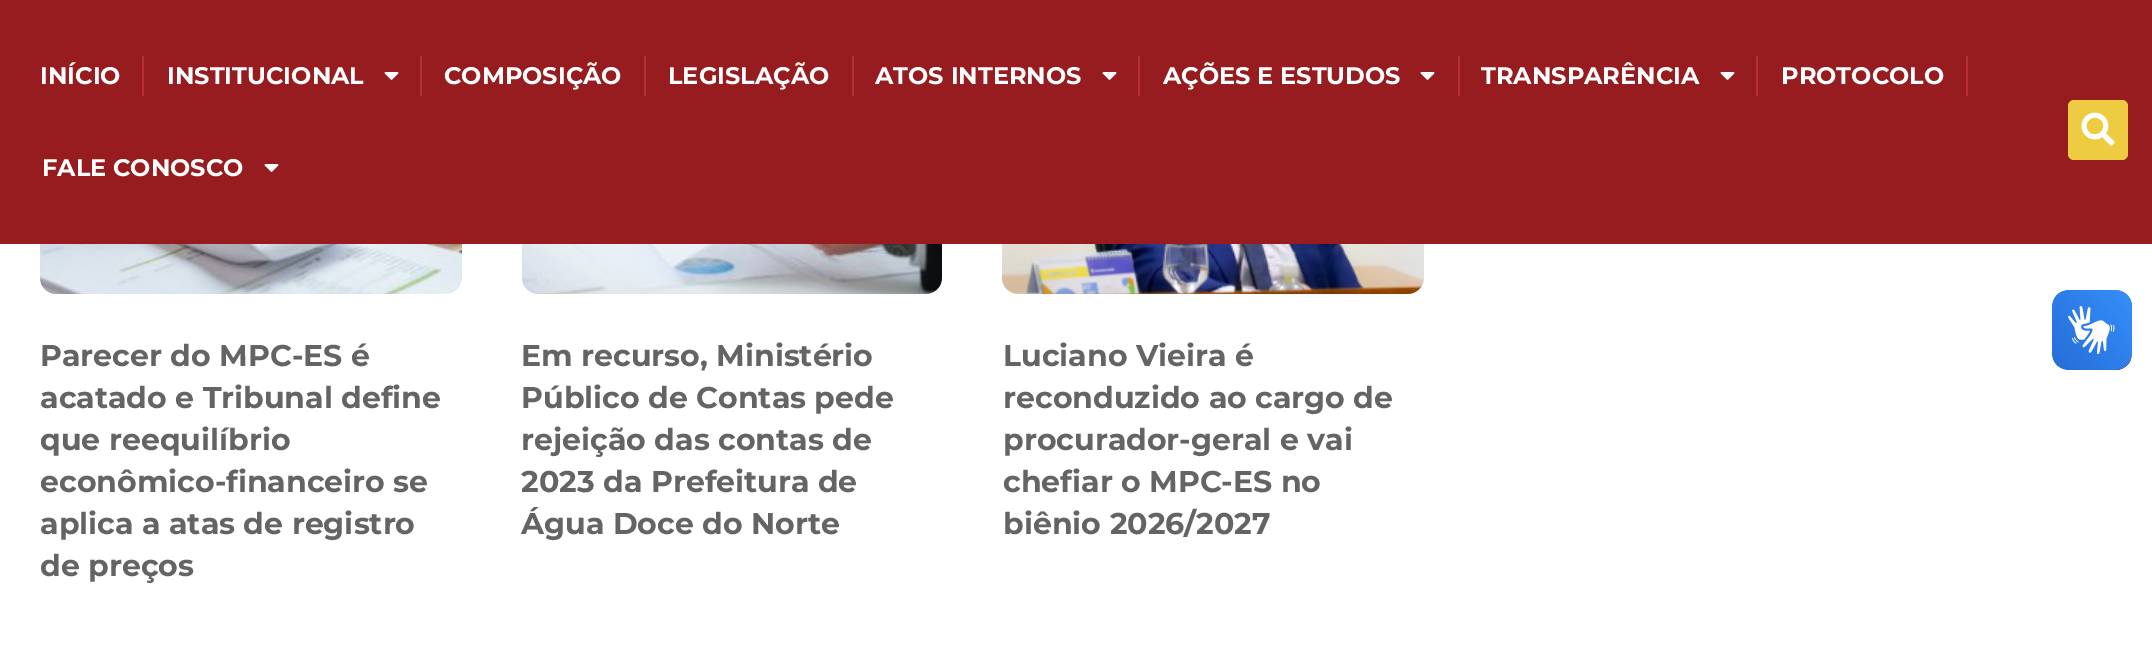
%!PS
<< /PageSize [2152 658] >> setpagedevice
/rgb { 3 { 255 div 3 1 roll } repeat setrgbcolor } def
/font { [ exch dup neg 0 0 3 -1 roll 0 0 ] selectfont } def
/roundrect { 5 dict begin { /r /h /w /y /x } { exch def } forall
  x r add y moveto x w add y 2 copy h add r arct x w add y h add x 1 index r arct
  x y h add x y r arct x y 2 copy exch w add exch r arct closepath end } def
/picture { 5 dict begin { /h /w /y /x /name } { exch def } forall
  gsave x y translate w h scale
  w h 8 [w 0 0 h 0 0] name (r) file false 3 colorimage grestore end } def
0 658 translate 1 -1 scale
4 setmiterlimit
255 255 255 rgb
0 0 2152 658 rectfill
151 28 31 rgb
0 0 2152 244 rectfill
182 47 50 rgb
142 56 2 40 rectfill
(img/1.rgb) 384 72 15 8 picture
[
  [420 56 2 40 182 47 50]
  [644 56 2 40 182 47 50]
  [852 56 2 40 182 47 50]
] { aload pop rgb rectfill } forall
(img/1.rgb) 1102 72 15 8 picture
1138 56 2 40 rectfill
(img/1.rgb) 1420 72 15 8 picture
1458 56 2 40 rectfill
(img/1.rgb) 1720 72 15 8 picture
1756 56 2 40 rectfill
1966 56 2 40 rectfill
(img/1.rgb) 264 164 15 8 picture
238 204 65 rgb
2068 100 60 60 6 roundrect fill
(img/2.rgb) 2081 112 34 34 picture
(img/3.rgb) 2052 290 80 80 picture
(img/4.rgb) 2052 290 80 80 picture
(img/5.rgb) 40 244 422 50 picture
(img/6.rgb) 522 244 420 50 picture
(img/7.rgb) 1002 244 422 50 picture
/Montserrat-Bold 24 font
255 255 255 rgb
[
  [(INÍCIO) 40 84]
  [(INSTITUCIONAL) 167 84]
  [(COMPOSIÇÃO) 444 84]
  [(LEGISLAÇÃO) 668 84]
  [(ATOS INTERNOS) 875 84]
  [(AÇÕES E ESTUDOS) 1163 84]
  [(TRANSPARÊNCIA) 1481 84]
  [(PROTOCOLO) 1781 84]
  [(FALE CONOSCO) 42 176]
] { aload pop moveto show } forall
/Montserrat-Bold 30 font
100 100 100 rgb
[
  [(Parecer do MPC-ES é) 40 366]
  [(acatado e Tribunal define) 40 408]
  [(que reequilíbrio) 40 450]
  [(econômico-financeiro se) 40 492]
  [(aplica a atas de registro) 40 534]
  [(de preços) 40 576]
  [(Em recurso, Ministério) 521 366]
  [(Público de Contas pede) 521 408]
  [(rejeição das contas de) 521 450]
  [(2023 da Prefeitura de) 521 492]
  [(Água Doce do Norte) 521 534]
  [(Luciano Vieira é) 1003 366]
  [(reconduzido ao cargo de) 1003 408]
  [(procurador-geral e vai) 1003 450]
  [(chefiar o MPC-ES no) 1003 492]
  [(biênio 2026/2027) 1003 534]
] { aload pop moveto show } forall
showpage
